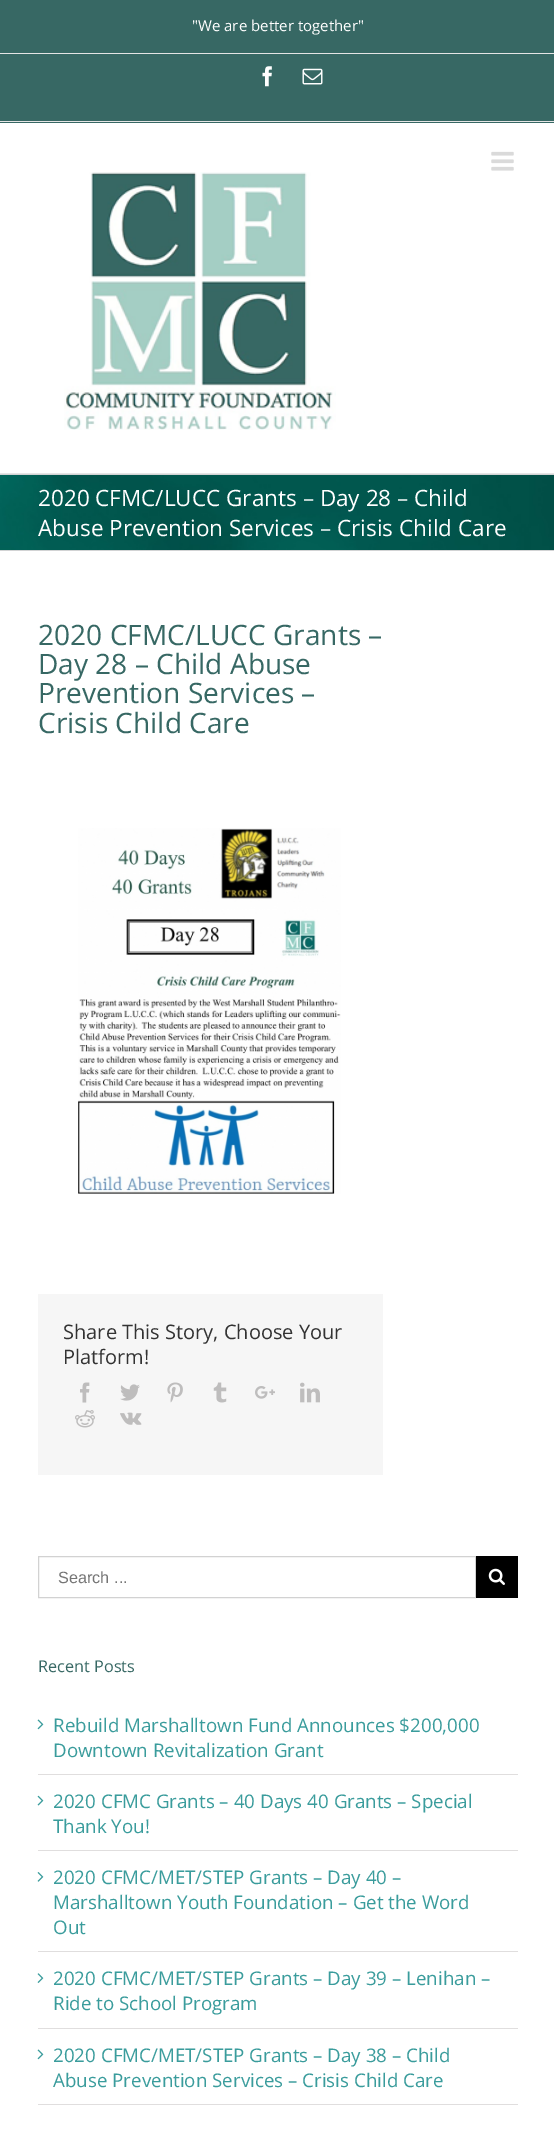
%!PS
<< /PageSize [554 2151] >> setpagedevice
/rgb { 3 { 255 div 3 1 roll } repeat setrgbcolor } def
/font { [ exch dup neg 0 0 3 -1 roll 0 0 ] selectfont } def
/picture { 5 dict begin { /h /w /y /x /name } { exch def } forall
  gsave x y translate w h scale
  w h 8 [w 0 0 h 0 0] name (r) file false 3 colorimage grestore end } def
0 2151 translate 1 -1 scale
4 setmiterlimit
255 255 255 rgb
0 0 554 2151 rectfill
[
  [0 0 554 123 55 104 100]
  [0 121 554 1 229 229 229]
  [0 53 554 1 229 229 229]
] { aload pop rgb rectfill } forall
(img/1.rgb) 262 66 10 21 picture
(img/2.rgb) 302 68 21 17 picture
0 473 554 1 rectfill
(img/3.rgb) 491 151 23 20 picture
(img/4.rgb) 64 172 272 258 picture
(img/5.rgb) 0 475 554 75 picture
210 211 212 rgb
0 474 554 1 rectfill
0 550 554 1 rectfill
(img/6.rgb) 78 828 263 366 picture
246 246 246 rgb
38 1294 345 181 rectfill
(img/7.rgb) 80 1382 10 21 picture
(img/8.rgb) 120 1384 20 17 picture
(img/9.rgb) 167 1382 16 21 picture
(img/10.rgb) 213 1382 14 21 picture
(img/11.rgb) 255 1386 20 13 picture
(img/12.rgb) 300 1382 20 21 picture
(img/13.rgb) 75 1410 20 18 picture
(img/14.rgb) 120 1412 22 13 picture
210 210 210 rgb
38.5 1556.5 437 41 rectstroke
0 0 0 rgb
476 1556 42 42 rectfill
(img/15.rgb) 488 1568 17 17 picture
224 222 222 rgb
38 1774 480 1 rectfill
(img/16.rgb) 37 1719 7 11 picture
38 1850 480 1 rectfill
(img/17.rgb) 37 1795 7 11 picture
38 1951 480 1 rectfill
(img/18.rgb) 37 1872 7 10 picture
38 2028 480 1 rectfill
(img/19.rgb) 37 1973 7 10 picture
38 2104 480 1 rectfill
(img/16.rgb) 37 2049 7 11 picture
/OpenSans-Regular 15 font
255 255 255 rgb
192 31 moveto ("We are better together") show
/OpenSans-Regular 22.5 font
38 506 moveto (2020 CFMC/LUCC Grants – Day 28 – Child) show
38 536 moveto (Abuse Prevention Services – Crisis Child Care) show
/OpenSans-Regular 28.1 font
55 104 100 rgb
[
  [(2020 CFMC/LUCC Grants –) 38 645]
  [(Day 28 – Child Abuse) 38 674]
  [(Prevention Services –) 38 703]
  [(Crisis Child Care) 38 733]
] { aload pop moveto show } forall
/OpenSans-Regular 20 font
51 51 51 rgb
63 1339 moveto (Share This Story, Choose Your) show
63 1364 moveto (Platform!) show
/LiberationSans-Regular 16.25 font
117 117 117 rgb
58 1583 moveto (Search ...) show
/OpenSans-Regular 16.25 font
55 104 100 rgb
38 1672 moveto (Recent Posts) show
/OpenSans-Regular 18.75 font
58 156 156 rgb
[
  [(Rebuild Marshalltown Fund Announces $200,000) 53 1732]
  [(Downtown Revitalization Grant) 53 1757]
  [(2020 CFMC Grants – 40 Days 40 Grants – Special) 53 1808]
  [(Thank You!) 53 1833]
  [(2020 CFMC/MET/STEP Grants – Day 40 –) 53 1884]
  [(Marshalltown Youth Foundation – Get the Word) 53 1909]
  [(Out) 53 1934]
  [(2020 CFMC/MET/STEP Grants – Day 39 – Lenihan –) 53 1985]
  [(Ride to School Program) 53 2010]
  [(2020 CFMC/MET/STEP Grants – Day 38 – Child) 53 2062]
  [(Abuse Prevention Services – Crisis Child Care) 53 2087]
] { aload pop moveto show } forall
showpage
